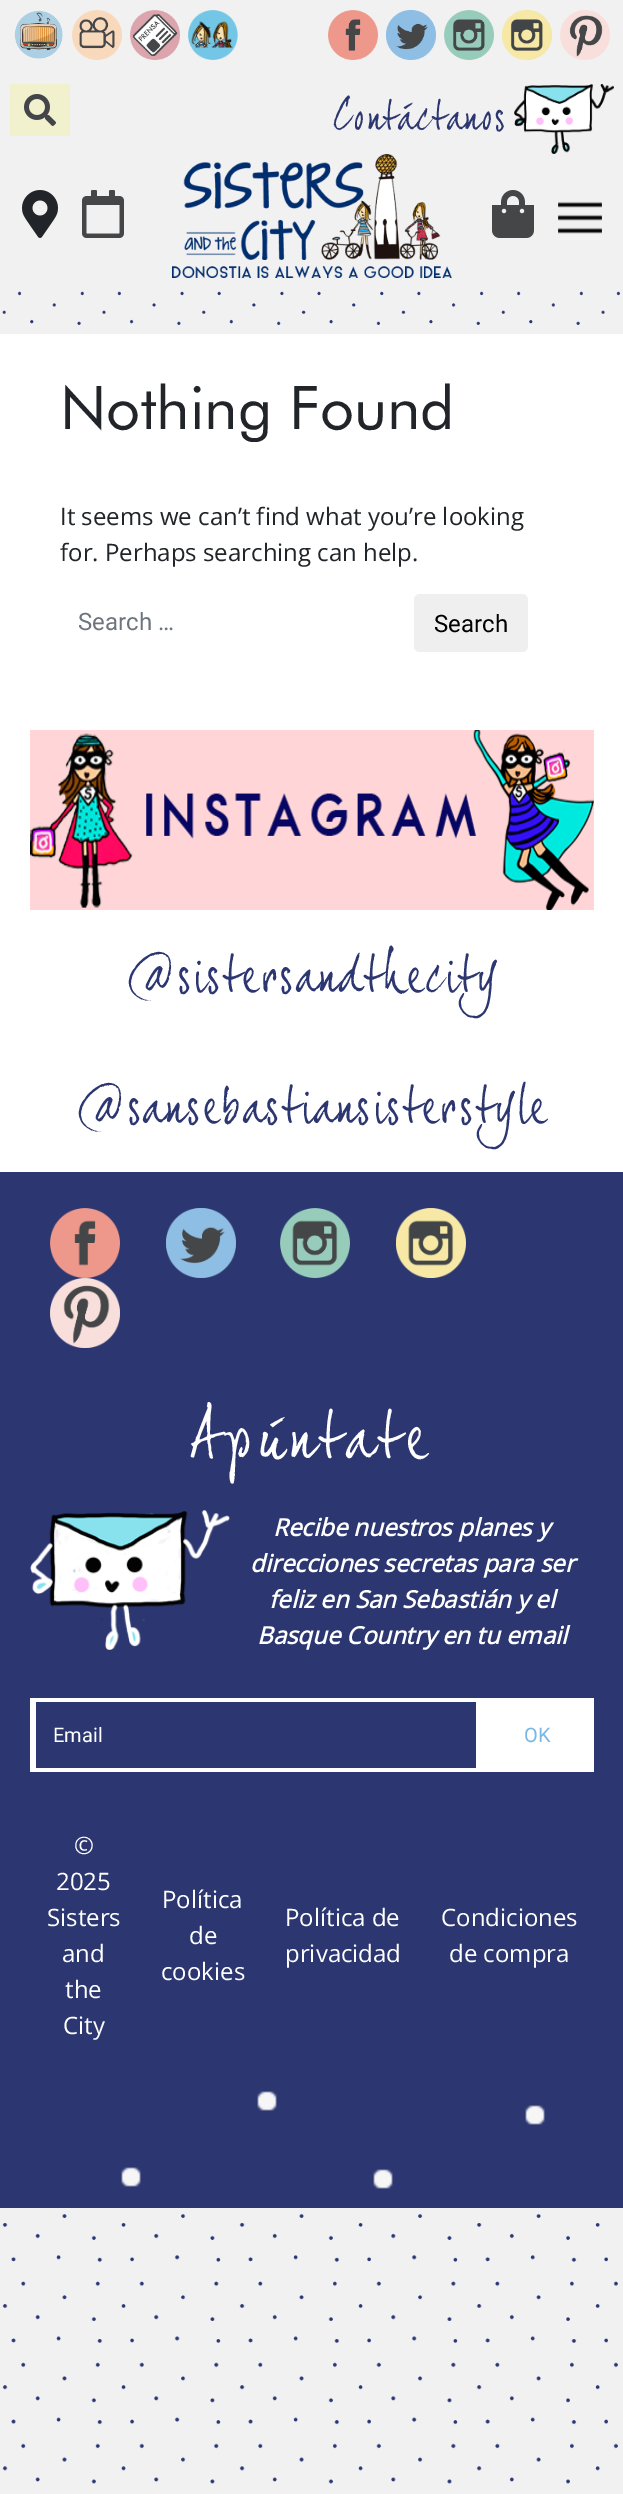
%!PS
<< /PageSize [623 2494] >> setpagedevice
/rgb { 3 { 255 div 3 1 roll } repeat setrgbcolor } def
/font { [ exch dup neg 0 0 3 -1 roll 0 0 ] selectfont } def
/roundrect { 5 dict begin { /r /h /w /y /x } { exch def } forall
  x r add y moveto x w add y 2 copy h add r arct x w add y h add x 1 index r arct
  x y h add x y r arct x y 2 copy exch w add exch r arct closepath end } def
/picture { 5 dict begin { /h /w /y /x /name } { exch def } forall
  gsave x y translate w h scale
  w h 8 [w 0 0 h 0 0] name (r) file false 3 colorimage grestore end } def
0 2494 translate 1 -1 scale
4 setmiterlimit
255 255 255 rgb
0 0 623 2494 rectfill
(img/1.rgb) 0 284 623 2210 picture
241 241 241 rgb
0 0 623 284 rectfill
(img/2.rgb) 14 10 49 49 picture
(img/3.rgb) 72 10 50 50 picture
(img/4.rgb) 130 10 50 50 picture
(img/5.rgb) 188 10 50 50 picture
(img/6.rgb) 328 10 50 50 picture
(img/7.rgb) 386 10 50 50 picture
(img/8.rgb) 444 10 50 50 picture
(img/9.rgb) 502 10 50 50 picture
(img/10.rgb) 560 10 50 50 picture
241 241 205 rgb
10 84 60 52 rectfill
(img/11.rgb) 24 94 32 32 picture
(img/12.rgb) 514 84 100 70 picture
(img/13.rgb) 22 190 36 48 picture
(img/14.rgb) 82 190 42 48 picture
(img/15.rgb) 172 154 280 124 picture
(img/16.rgb) 492 190 42 48 picture
(img/17.rgb) 558 201 44 33 picture
(img/18.rgb) 2 285 618 49 picture
255 255 255 rgb
0 334 623 838 rectfill
239 239 239 rgb
414 594 114 58 6 roundrect fill
255 213 215 rgb
30 730 564 180 rectfill
(img/19.rgb) 30 730 564 180 picture
44 54 112 rgb
0 1172 623 1036 rectfill
(img/20.rgb) 50 1208 70 70 picture
(img/21.rgb) 166 1208 70 70 picture
(img/22.rgb) 280 1208 70 70 picture
(img/23.rgb) 396 1208 70 70 picture
(img/24.rgb) 50 1278 70 70 picture
(img/25.rgb) 30 1510 200 140 picture
255 255 255 rgb
30 1698 564 74 rectfill
44 54 112 rgb
36 1702 440 66 rectfill
(img/26.rgb) 121 2091 424 98 picture
/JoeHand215-Regular 40 font
333 129 moveto (Contáctanos) show
/Futura-Regular 60 font
33 37 41 rgb
60 429 moveto (Nothing Found) show
/OpenSans-Regular 24 font
60 525 moveto (It seems we can’t find what you’re looking) show
60 561 moveto (for. Perhaps searching can help.) show
/Roboto-Regular 24 font
108 117 125 rgb
78 630 moveto (Search …) show
0 0 0 rgb
434 632 moveto (Search) show
/JoeHand215-Regular 50 font
44 54 112 rgb
126 991 moveto (@sistersandthecity) show
76 1122 moveto (@sansebastiansisterstyle) show
/JoeHand215-Regular 64 font
255 255 255 rgb
190 1457 moveto 3.5 0 (Apúntate) ashow
/OpenSans-BoldItalic 24 font
[
  [(Recibe nuestros planes y) 273 1536]
  [(direcciones secretas para ser) 250 1572]
  [(feliz en San Sebastián y el) 269 1608]
  [(Basque Country en tu email) 257 1644]
] { aload pop moveto show } forall
/Roboto-Regular 20 font
53 1742 moveto (Email) show
120 183 229 rgb
524 1742 moveto (OK) show
/OpenSans-Regular 24 font
255 255 255 rgb
[
  [(©) 74 1854]
  [(2025) 56 1890]
  [(Sisters) 47 1926]
  [(and) 62 1962]
  [(the) 65 1998]
  [(City) 63 2034]
  [(Política) 162 1908]
  [(de) 189 1944]
  [(cookies) 161 1980]
  [(Política de) 285 1926]
  [(privacidad) 285 1962]
  [(Condiciones) 441 1926]
  [(de compra) 449 1962]
] { aload pop moveto show } forall
showpage
